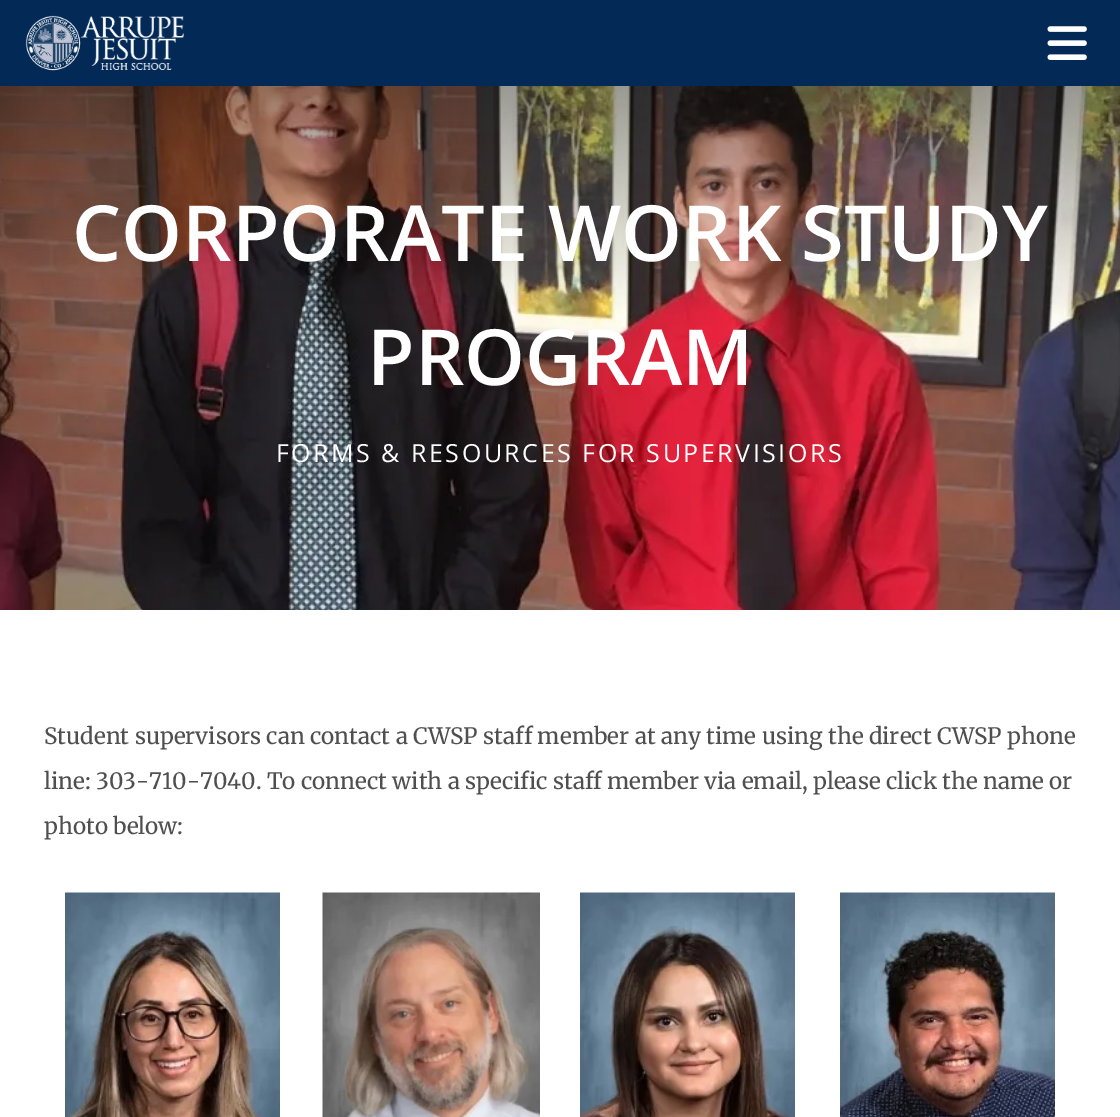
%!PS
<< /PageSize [1120 1117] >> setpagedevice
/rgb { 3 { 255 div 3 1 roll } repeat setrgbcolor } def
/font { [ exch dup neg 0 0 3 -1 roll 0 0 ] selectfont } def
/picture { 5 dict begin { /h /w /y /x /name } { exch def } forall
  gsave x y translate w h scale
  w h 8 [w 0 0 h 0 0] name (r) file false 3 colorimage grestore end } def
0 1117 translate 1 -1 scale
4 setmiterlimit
255 255 255 rgb
0 0 1120 1117 rectfill
3 42 86 rgb
0 0 1120 86 rectfill
(img/1.rgb) 25 15 159 56 picture
(img/2.rgb) 1047 26 40 34 picture
(img/3.rgb) 0 86 1120 524 picture
(img/4.rgb) 65 892 215 225 picture
(img/5.rgb) 322 892 218 225 picture
(img/6.rgb) 580 892 215 225 picture
(img/7.rgb) 840 892 215 225 picture
/OpenSans-SemiBold 77.5 font
255 255 255 rgb
72 261 moveto (CORPORATE WORK STUDY) show
367 385 moveto (PROGRAM) show
/OpenSans-Regular 25 font
276 462 moveto 2.5 0 (FORMS & RESOURCES FOR SUPERVISIORS) ashow
/Merriweather-Regular 22.5 font
79 79 79 rgb
[
  [(Student supervisors can contact a CWSP staff member at any time using the direct CWSP phone) 44 744]
  [(line: 303-710-7040. To connect with a specific staff member via email, please click the name or) 44 789]
  [(photo below:) 44 834]
] { aload pop moveto show } forall
showpage
